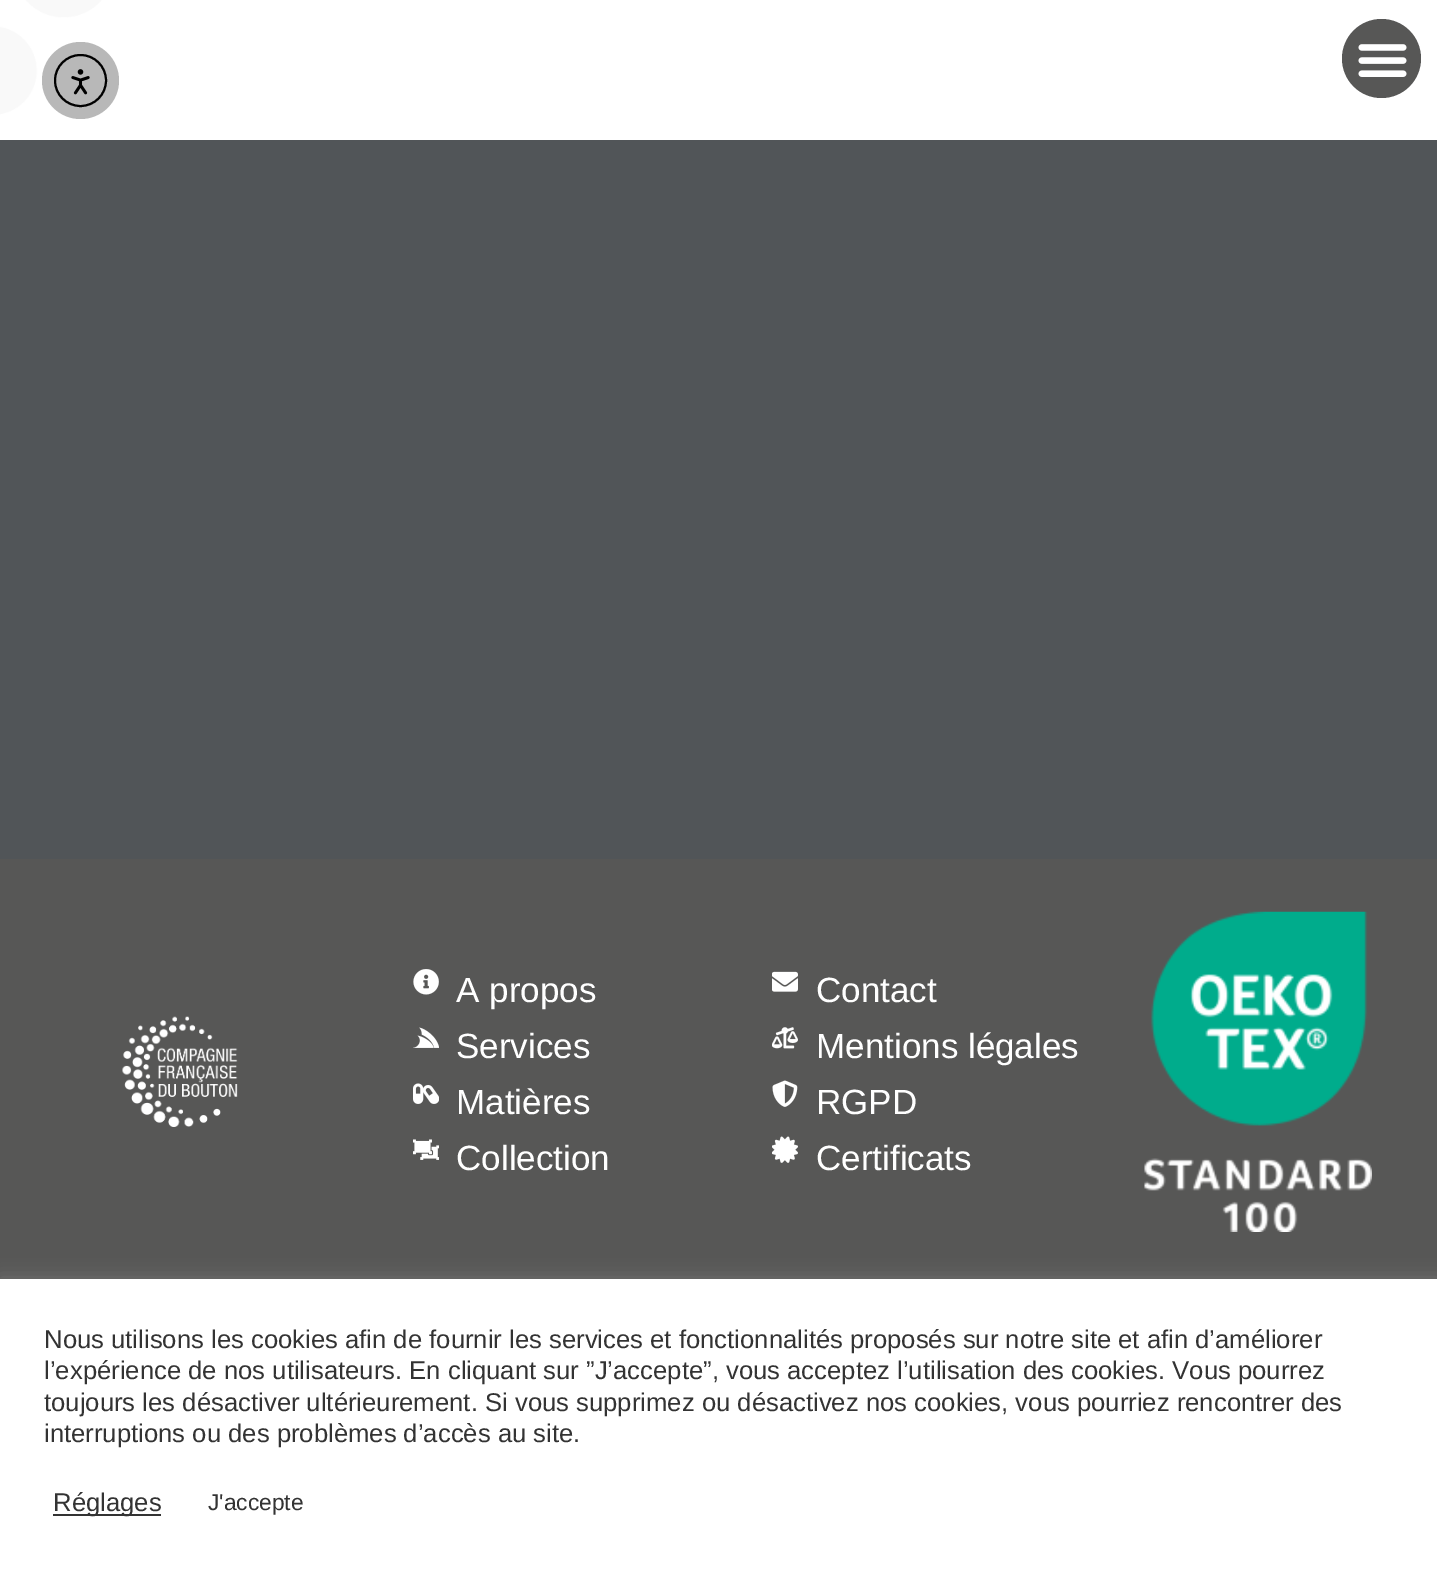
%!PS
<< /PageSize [1437 1581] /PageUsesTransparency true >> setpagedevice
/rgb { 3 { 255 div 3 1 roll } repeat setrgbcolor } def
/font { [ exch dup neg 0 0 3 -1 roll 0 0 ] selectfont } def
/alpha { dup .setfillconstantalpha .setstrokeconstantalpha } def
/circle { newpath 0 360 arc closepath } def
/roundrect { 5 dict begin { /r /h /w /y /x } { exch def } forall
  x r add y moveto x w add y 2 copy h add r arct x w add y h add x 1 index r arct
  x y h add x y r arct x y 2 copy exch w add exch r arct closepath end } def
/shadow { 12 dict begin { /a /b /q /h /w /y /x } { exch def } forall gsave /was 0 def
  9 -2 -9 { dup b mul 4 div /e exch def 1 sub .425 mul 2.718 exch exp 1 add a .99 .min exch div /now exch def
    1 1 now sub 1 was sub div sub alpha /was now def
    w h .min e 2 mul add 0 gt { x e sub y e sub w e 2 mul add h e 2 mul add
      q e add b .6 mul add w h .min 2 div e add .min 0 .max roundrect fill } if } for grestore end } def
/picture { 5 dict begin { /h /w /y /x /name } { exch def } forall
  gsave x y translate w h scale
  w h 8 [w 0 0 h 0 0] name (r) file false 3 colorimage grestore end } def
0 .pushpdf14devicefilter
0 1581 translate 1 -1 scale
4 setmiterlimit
255 255 255 rgb
0 0 1437 1581 rectfill
(img/1.rgb) 0 0 102 115 picture
184 184 184 rgb
80.5 80.5 38.5 circle fill
0 0 0 rgb
2 setlinewidth
80.5 80.5 25.5 circle stroke
(img/2.rgb) 71 69 19 26 picture
87 87 86 rgb
1381.5 58.5 39.5 circle fill
(img/3.rgb) 1358 44 49 33 picture
81 85 88 rgb
0 140 1437 719 rectfill
87 87 86 rgb
0 859 1437 420 rectfill
(img/4.rgb) 122 1016 116 111 picture
(img/5.rgb) 413 969 26 26 picture
(img/6.rgb) 413 1027 26 21 picture
(img/7.rgb) 413 1083 26 21 picture
(img/8.rgb) 413 1139 26 21 picture
(img/9.rgb) 772 971 26 21 picture
(img/10.rgb) 772 1027 26 22 picture
(img/11.rgb) 772 1080 26 27 picture
(img/12.rgb) 772 1136 26 27 picture
(img/13.rgb) 1144 911 228 321 picture
172 171 171 rgb
0 1278 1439 302 0 9 0.3 shadow
255 255 255 rgb
0 1279 1437 302 rectfill
51 51 51 rgb
53 1514 108 2 rectfill
/LiberationSans-Regular 35 font
255 255 255 rgb
[
  [(A propos) 456 1002]
  [(Services) 456 1058]
  [(Matières) 456 1114]
  [(Collection) 456 1170]
  [(Contact) 816 1002]
  [(Mentions légales) 816 1058]
  [(RGPD) 816 1114]
  [(Certificats) 816 1170]
] { aload pop moveto show } forall
/LiberationSans-Regular 25.67 font
51 51 51 rgb
[
  [(Nous utilisons les cookies afin de fournir les services et fonctionnalités proposés sur notre site et afin d’améliorer) 44 1348]
  [(l’expérience de nos utilisateurs. En cliquant sur ”J’accepte”, vous acceptez l’utilisation des cookies. Vous pourrez) 44 1379]
  [(toujours les désactiver ultérieurement. Si vous supprimez ou désactivez nos cookies, vous pourriez rencontrer des) 44 1411]
  [(interruptions ou des problèmes d’accès au site.) 44 1442]
  [(Réglages) 53 1511]
] { aload pop moveto show } forall
/LiberationSans-Regular 22.75 font
208 1510 moveto (J'accepte) show
.poppdf14devicefilter showpage
